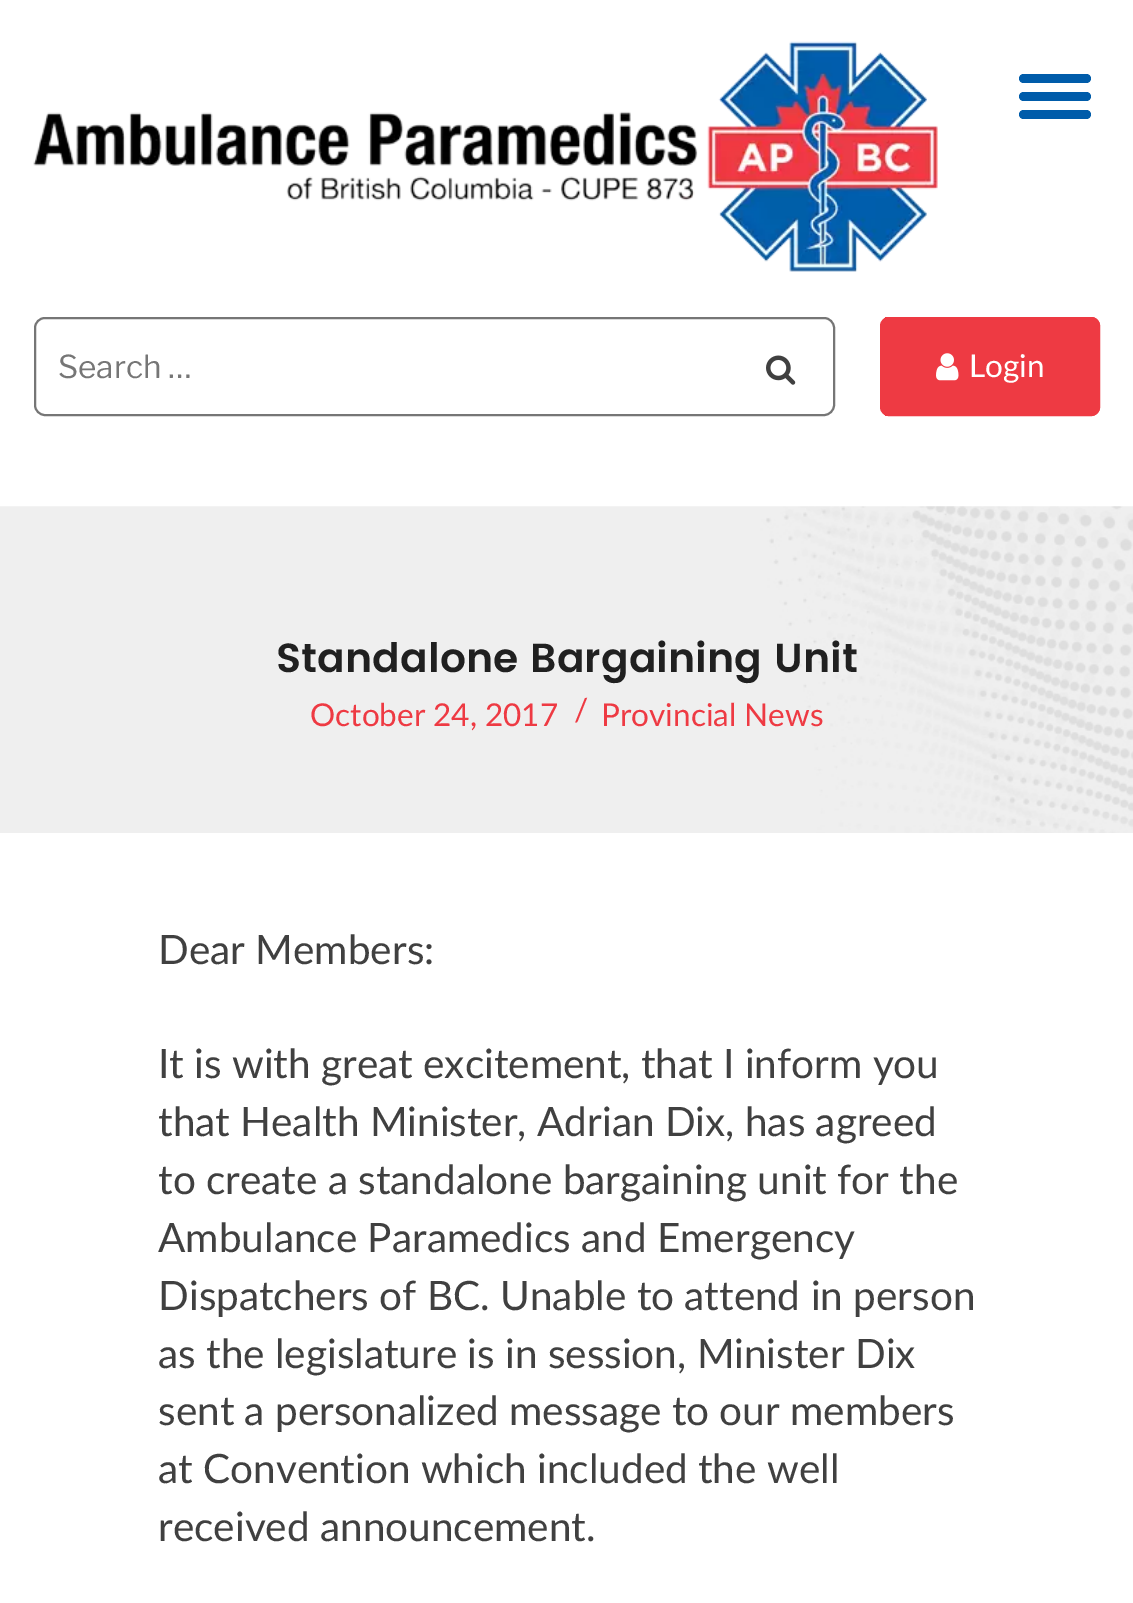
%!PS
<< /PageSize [1133 1603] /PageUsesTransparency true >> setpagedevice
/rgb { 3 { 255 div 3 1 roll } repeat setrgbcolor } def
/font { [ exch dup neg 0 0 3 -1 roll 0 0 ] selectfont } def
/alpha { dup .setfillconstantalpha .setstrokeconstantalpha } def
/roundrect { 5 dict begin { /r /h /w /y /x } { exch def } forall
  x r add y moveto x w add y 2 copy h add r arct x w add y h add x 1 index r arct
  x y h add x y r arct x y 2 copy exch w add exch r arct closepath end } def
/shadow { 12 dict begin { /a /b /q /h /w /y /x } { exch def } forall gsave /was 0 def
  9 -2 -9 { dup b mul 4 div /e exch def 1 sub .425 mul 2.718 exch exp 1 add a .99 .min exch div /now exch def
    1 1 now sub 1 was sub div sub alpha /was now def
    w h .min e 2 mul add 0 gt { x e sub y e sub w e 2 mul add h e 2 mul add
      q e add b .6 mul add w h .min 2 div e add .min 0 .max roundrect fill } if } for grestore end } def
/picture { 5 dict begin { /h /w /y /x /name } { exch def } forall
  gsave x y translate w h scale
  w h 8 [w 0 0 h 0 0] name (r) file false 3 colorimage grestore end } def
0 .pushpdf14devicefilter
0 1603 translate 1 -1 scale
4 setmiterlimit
255 255 255 rgb
0 0 1133 1603 rectfill
(img/1.rgb) 33 41 905 231 picture
0 92 170 rgb
1019 74 72 9 4.5 roundrect fill
1019 92 72 9 4.5 roundrect fill
1019 110 72 9 4.5 roundrect fill
118 118 118 rgb
2 setlinewidth
35 318 799 97 10 roundrect stroke
(img/2.rgb) 766 355 30 30 picture
gsave
880 317 220 99 9 roundrect clip newpath
238 58 67 rgb
884 317 moveto 1091 317 lineto 1096 317 1100 321 1100 326 curveto 1100 407 lineto 1100 412 1096 416 1091 416 curveto 884 416 lineto closepath fill
grestore
238 58 67 rgb
5 setlinewidth
882.5 319.5 215 94 6.5 roundrect stroke
(img/3.rgb) 936 353 23 28 picture
(img/4.rgb) 0 506 1133 327 picture
238 238 238 rgb
-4 828 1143 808 0 11 1 shadow
255 255 255 rgb
0 833 1133 770 rectfill
/LibreFranklin-Thin 31.5 font
118 118 118 rgb
58 378 moveto (Search …) show
/Lato-Regular 31.5 font
255 255 255 rgb
969 377 moveto (Login) show
/Poppins-SemiBold 40.5 font
32 32 32 rgb
276 672 moveto (Standalone Bargaining Unit) show
/Lato-Regular 31.5 font
238 58 67 rgb
[
  [(October 24, 2017) 310 726]
  [(/) 574 721]
  [(Provincial News) 601 726]
] { aload pop moveto show } forall
/Lato-Regular 40.5 font
64 64 64 rgb
[
  [(Dear Members:) 158 964]
  [(It is with great excitement, that I inform you) 158 1078]
  [(that Health Minister, Adrian Dix, has agreed) 158 1136]
  [(to create a standalone bargaining unit for the) 158 1194]
  [(Ambulance Paramedics and Emergency) 158 1252]
  [(Dispatchers of BC. Unable to attend in person) 158 1310]
  [(as the legislature is in session, Minister Dix) 158 1368]
  [(sent a personalized message to our members) 158 1425]
  [(at Convention which included the well) 158 1483]
  [(received announcement.) 158 1541]
] { aload pop moveto show } forall
.poppdf14devicefilter showpage
